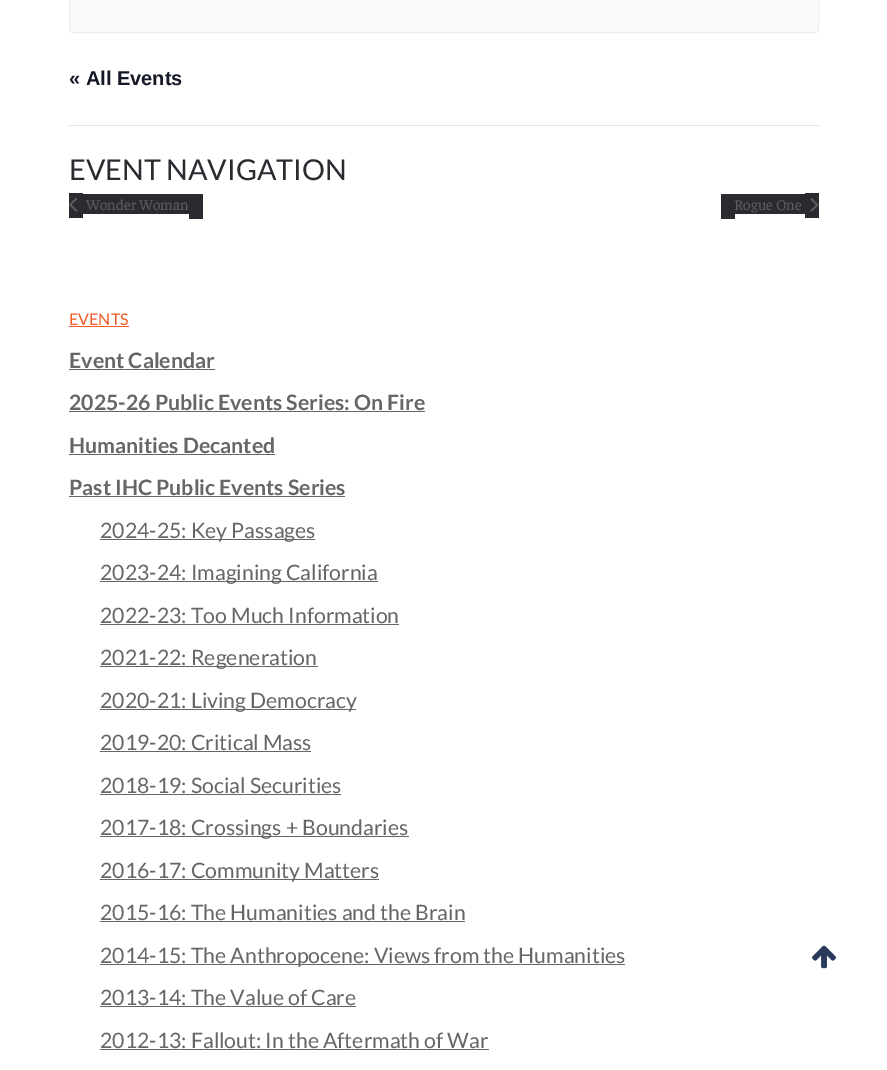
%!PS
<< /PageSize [887 1070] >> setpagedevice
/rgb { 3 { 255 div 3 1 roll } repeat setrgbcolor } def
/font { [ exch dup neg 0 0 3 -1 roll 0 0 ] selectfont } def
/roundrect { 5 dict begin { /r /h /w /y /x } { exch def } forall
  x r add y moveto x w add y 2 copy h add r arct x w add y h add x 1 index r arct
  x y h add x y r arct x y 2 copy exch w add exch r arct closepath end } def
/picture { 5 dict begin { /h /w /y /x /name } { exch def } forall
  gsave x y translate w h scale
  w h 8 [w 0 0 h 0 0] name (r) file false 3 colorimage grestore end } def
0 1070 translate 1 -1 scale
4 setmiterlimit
255 255 255 rgb
0 0 887 1070 rectfill
250 250 250 rgb
69.5 -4.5 749 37 3.5 roundrect gsave fill grestore
238 238 238 rgb
stroke
[
  [69 125 750 1 228 228 228]
  [69 193 14 25 44 42 49]
  [83 194 106 20 44 42 49]
  [189 194 14 25 44 42 49]
] { aload pop rgb rectfill } forall
(img/1.rgb) 69 198 9 14 picture
[
  [721 194 14 25 44 42 49]
  [735 194 70 20 44 42 49]
  [805 193 14 25 44 42 49]
] { aload pop rgb rectfill } forall
(img/2.rgb) 810 198 9 14 picture
[
  [69 326 60 1 241 90 34]
  [69 369 146 1 102 102 102]
  [69 411 356 1 102 102 102]
  [69 454 206 1 102 102 102]
  [69 496 276 1 102 102 102]
  [100 539 215 1 102 102 102]
  [100 581 278 1 102 102 102]
  [100 624 299 1 102 102 102]
  [100 666 218 1 102 102 102]
  [100 709 256 1 102 102 102]
  [100 751 211 1 102 102 102]
  [100 794 241 1 102 102 102]
  [100 836 309 1 102 102 102]
  [100 879 279 1 102 102 102]
  [100 921 365 1 102 102 102]
  [100 964 525 1 102 102 102]
  [100 1006 256 1 102 102 102]
  [100 1049 389 1 102 102 102]
] { aload pop rgb rectfill } forall
(img/3.rgb) 812 945 24 24 picture
/LiberationSans-Bold 20 font
20 24 39 rgb
69 85 moveto (« All Events) show
/Lato-Regular 28.75 font
44 42 49 rgb
69 180 moveto (EVENT NAVIGATION) show
/Faustina-Regular 15 font
93 93 93 rgb
86 210 moveto (Wonder Woman) show
734 210 moveto (Rogue One) show
/Lato-Regular 16 font
241 90 34 rgb
69 325 moveto (EVENTS) show
/Lato-Bold 21.25 font
102 102 102 rgb
[
  [(Event Calendar) 69 368]
  [(2025-26 Public Events Series: On Fire) 69 410]
  [(Humanities Decanted) 69 453]
  [(Past IHC Public Events Series) 69 495]
] { aload pop moveto show } forall
/Lato-Regular 21.25 font
[
  [(2024-25: Key Passages) 100 538]
  [(2023-24: Imagining California) 100 580]
  [(2022-23: Too Much Information) 100 623]
  [(2021-22: Regeneration) 100 665]
  [(2020-21: Living Democracy) 100 708]
  [(2019-20: Critical Mass) 100 750]
  [(2018-19: Social Securities) 100 793]
  [(2017-18: Crossings + Boundaries) 100 835]
  [(2016-17: Community Matters) 100 878]
  [(2015-16: The Humanities and the Brain) 100 920]
  [(2014-15: The Anthropocene: Views from the Humanities) 100 963]
  [(2013-14: The Value of Care) 100 1005]
  [(2012-13: Fallout: In the Aftermath of War) 100 1048]
] { aload pop moveto show } forall
showpage
